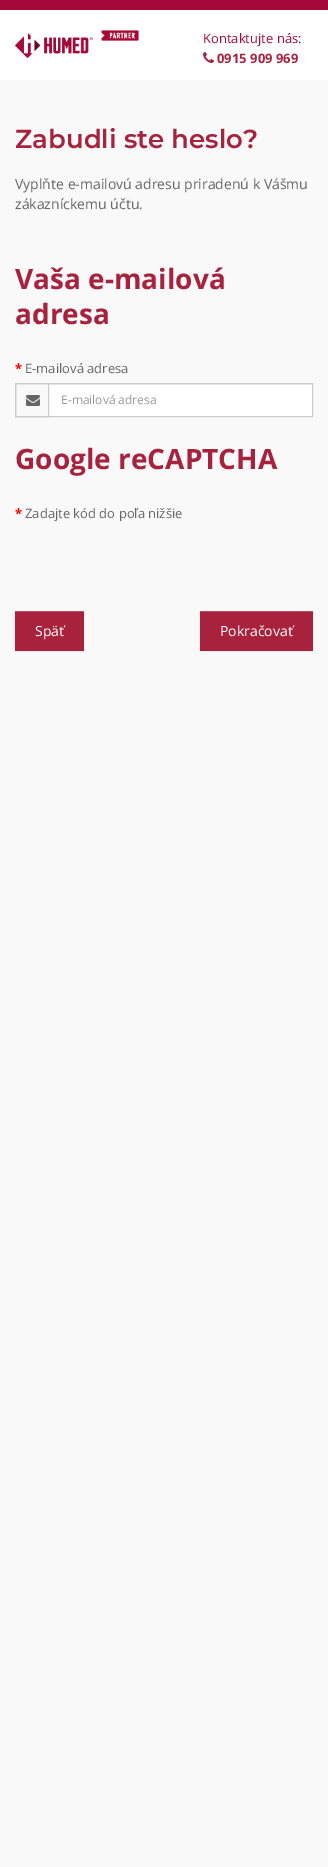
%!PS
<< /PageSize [328 1867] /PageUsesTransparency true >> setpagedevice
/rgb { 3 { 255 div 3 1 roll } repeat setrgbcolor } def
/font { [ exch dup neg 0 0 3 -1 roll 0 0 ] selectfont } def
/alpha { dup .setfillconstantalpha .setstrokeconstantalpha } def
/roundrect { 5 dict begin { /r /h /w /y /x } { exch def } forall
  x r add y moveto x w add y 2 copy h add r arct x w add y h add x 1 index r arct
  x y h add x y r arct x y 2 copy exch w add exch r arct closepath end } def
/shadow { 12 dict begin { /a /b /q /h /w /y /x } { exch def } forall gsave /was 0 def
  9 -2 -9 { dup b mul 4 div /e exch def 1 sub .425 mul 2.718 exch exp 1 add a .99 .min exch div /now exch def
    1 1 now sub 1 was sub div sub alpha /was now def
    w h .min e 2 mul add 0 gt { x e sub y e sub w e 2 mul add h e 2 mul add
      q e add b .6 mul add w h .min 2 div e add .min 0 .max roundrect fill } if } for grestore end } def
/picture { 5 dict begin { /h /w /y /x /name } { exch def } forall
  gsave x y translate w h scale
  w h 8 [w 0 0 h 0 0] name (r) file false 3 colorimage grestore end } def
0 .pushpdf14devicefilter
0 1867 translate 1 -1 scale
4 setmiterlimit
249 249 249 rgb
0 0 328 1867 rectfill
255 255 255 rgb
0 10 328 70 rectfill
164 9 58 rgb
0 0 328 10 rectfill
(img/1.rgb) 15 33 78 25 picture
(img/2.rgb) 101 30 39 11 picture
(img/3.rgb) 203 52 11 11 picture
255 255 255 rgb
49 385 263 31 rectfill
236 236 236 rgb
49 384 263 1 rectfill
204 204 204 rgb
15.5 383.5 297 33 rectstroke
15.5 383.5 33 33 rectstroke
(img/4.rgb) 26 395 14 11 picture
0 0 0 rgb
15 612 69 40 0 1 0.05 shadow
168 33 61 rgb
15 612 69 39 rectfill
185 77 100 rgb
15 611 69 1 rectfill
0 0 0 rgb
200 612 113 40 0 1 0.05 shadow
168 33 61 rgb
200 612 113 39 rectfill
185 77 100 rgb
200 611 113 1 rectfill
/OpenSans-Regular 13 font
164 9 58 rgb
203 43 moveto (Kontaktujte nás:) show
/OpenSans-Bold 13 font
168 33 61 rgb
217 63 moveto (0915 909 969) show
/Montserrat-SemiBold 26 font
15 148 moveto (Zabudli ste heslo?) show
/OpenSans-Regular 14 font
102 102 102 rgb
15 189 moveto (Vyplňte e-mailovú adresu priradenú k Vášmu) show
15 209 moveto (zákazníckemu účtu.) show
/OpenSans-Bold 28 font
168 33 61 rgb
15 289 moveto (Vaša e-mailová) show
15 324 moveto (adresa) show
/OpenSans-Bold 13 font
255 0 0 rgb
15 373 moveto (*) show
/OpenSans-Regular 13 font
102 102 102 rgb
25 373 moveto (E-mailová adresa) show
/OpenSans-Regular 12 font
153 153 153 rgb
61 404 moveto (E-mailová adresa) show
/OpenSans-Bold 28 font
168 33 61 rgb
15 469 moveto (Google reCAPTCHA) show
/OpenSans-Bold 13 font
255 0 0 rgb
15 518 moveto (*) show
/OpenSans-Regular 13 font
102 102 102 rgb
25 518 moveto (Zadajte kód do poľa nižšie) show
/OpenSans-Regular 14 font
255 255 255 rgb
35 636 moveto (Späť) show
220 636 moveto (Pokračovať) show
.poppdf14devicefilter showpage
